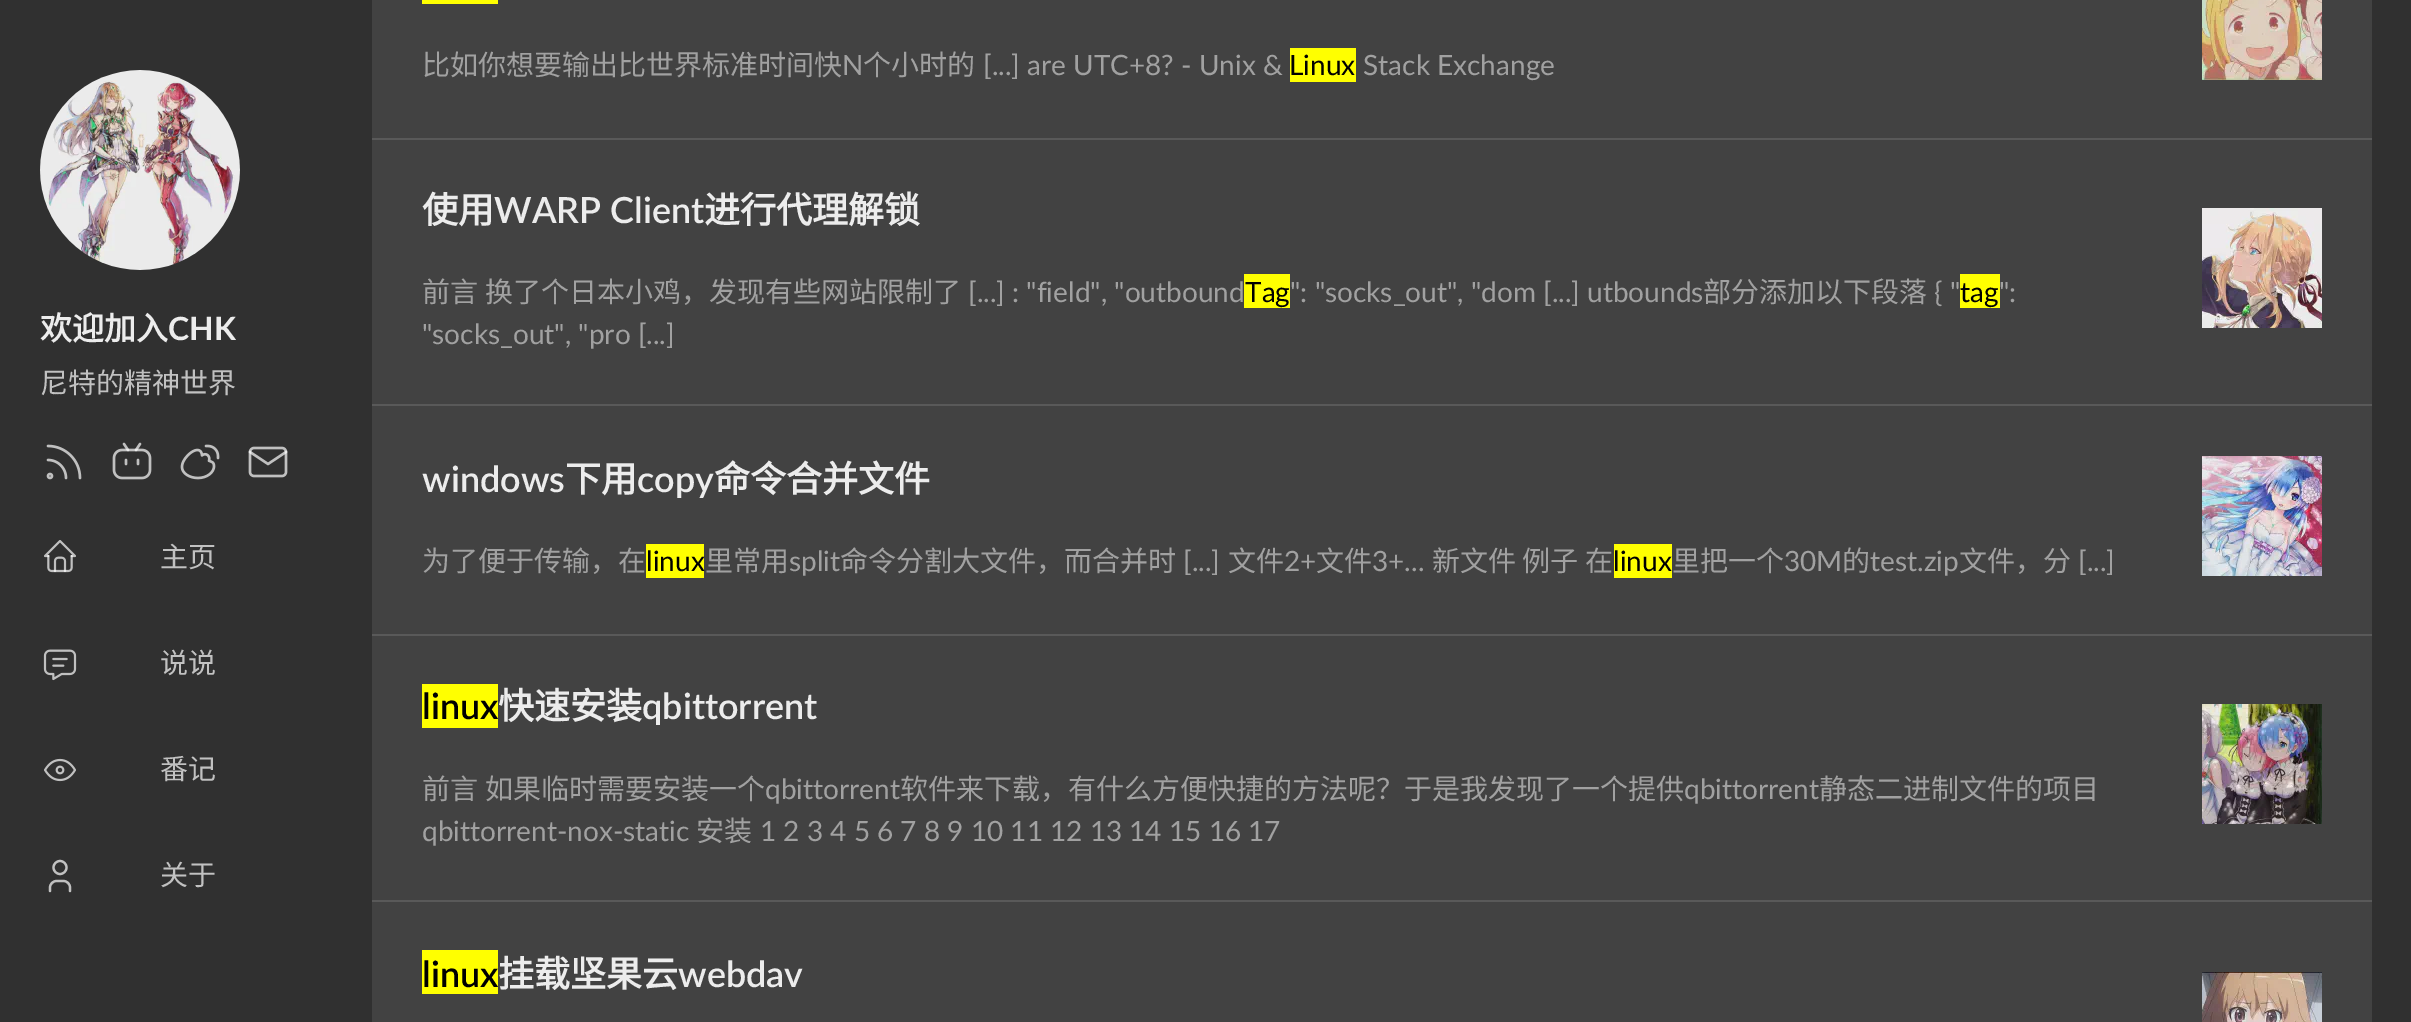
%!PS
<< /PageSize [2411 1022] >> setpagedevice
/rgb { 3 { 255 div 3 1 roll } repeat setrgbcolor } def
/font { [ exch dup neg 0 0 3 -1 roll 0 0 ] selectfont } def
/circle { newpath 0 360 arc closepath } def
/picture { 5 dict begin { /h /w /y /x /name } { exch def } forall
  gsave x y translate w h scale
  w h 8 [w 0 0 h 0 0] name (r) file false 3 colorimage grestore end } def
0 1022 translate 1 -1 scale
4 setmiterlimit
48 48 48 rgb
0 0 2411 1022 rectfill
(img/1.rgb) 40 70 200 200 picture
(img/2.rgb) 46 444 36 36 picture
(img/3.rgb) 112 442 40 38 picture
(img/4.rgb) 180 444 40 36 picture
(img/5.rgb) 248 446 40 32 picture
(img/6.rgb) 44 540 32 33 picture
(img/7.rgb) 43 649 34 32 picture
(img/8.rgb) 44 758 32 24 picture
193 193 193 rgb
2.2 setlinewidth
60 867.5 6.5 circle stroke
1 setlinecap
1 setlinejoin
50 891 moveto 50 887.5 lineto 50 884 53 881 56.5 881 curveto 63.5 881 lineto 67 881 70 884 70 887.5 curveto 70 891 lineto stroke
[
  [372 0 2000 1022 66 66 66]
  [372 138 2000 2 89 89 89]
  [422 0 76 4 255 255 0]
  [1290 48 66 34 255 255 0]
] { aload pop rgb rectfill } forall
(img/9.rgb) 2202 0 120 80 picture
[
  [372 404 2000 2 89 89 89]
  [1244 274 46 34 255 255 0]
  [1960 274 40 34 255 255 0]
] { aload pop rgb rectfill } forall
(img/10.rgb) 2202 208 120 120 picture
[
  [372 634 2000 2 89 89 89]
  [646 544 58 34 255 255 0]
  [1614 544 58 34 255 255 0]
] { aload pop rgb rectfill } forall
(img/11.rgb) 2202 456 120 120 picture
89 89 89 rgb
372 900 2000 2 rectfill
255 255 0 rgb
422 684 76 44 rectfill
(img/12.rgb) 2202 704 120 120 picture
422 950 76 44 rectfill
(img/13.rgb) 2202 972 120 50 picture
/NotoSansCJKSC-Bold 32 font
236 236 236 rgb
40 340 moveto (欢迎加入) show
/Lato-Bold 32 font
168 340 moveto (CHK) show
/NotoSansCJKSC-Regular 28 font
193 193 193 rgb
[
  [(尼特的精神世界) 40 393]
  [(主页) 160 567]
  [(说说) 160 673]
  [(番记) 160 779]
  [(关于) 160 885]
] { aload pop moveto show } forall
161 161 161 rgb
422 75 moveto (比如你想要输出比世界标准时间快) show
/Lato-Regular 28 font
842 75 moveto (N) show
/NotoSansCJKSC-Regular 28 font
863 75 moveto (个小时的) show
/Lato-Regular 28 font
983 75 moveto ([...] are UTC+8? - Unix &) show
0 0 0 rgb
1289 75 moveto (Linux) show
161 161 161 rgb
1363 75 moveto (Stack Exchange) show
/NotoSansCJKSC-Bold 36 font
236 236 236 rgb
422 223 moveto (使用) show
/Lato-SemiBold 36 font
494 223 moveto (WARP Client) show
/NotoSansCJKSC-Bold 36 font
704 223 moveto (进行代理解锁) show
/NotoSansCJKSC-Regular 28 font
161 161 161 rgb
422 302 moveto (前言) show
485 302 moveto (换了个日本小鸡，发现有些网站限制了) show
/Lato-Regular 28 font
968 302 moveto ([...] : "field", "outbound) show
0 0 0 rgb
1245 302 moveto (Tag) show
161 161 161 rgb
1290 302 moveto (": "socks_out", "dom [...] utbounds) show
/NotoSansCJKSC-Regular 28 font
1703 302 moveto (部分添加以下段落) show
/Lato-Regular 28 font
1934 302 moveto ({ ") show
0 0 0 rgb
1960 302 moveto (tag) show
161 161 161 rgb
1999 302 moveto (":) show
422 344 moveto ("socks_out", "pro [...]) show
/Lato-SemiBold 36 font
236 236 236 rgb
422 492 moveto (windows) show
/NotoSansCJKSC-Bold 36 font
565 492 moveto (下用) show
/Lato-SemiBold 36 font
637 492 moveto (copy) show
/NotoSansCJKSC-Bold 36 font
714 492 moveto (命令合并文件) show
/NotoSansCJKSC-Regular 28 font
161 161 161 rgb
422 571 moveto (为了便于传输，在) show
/Lato-Regular 28 font
0 0 0 rgb
646 571 moveto (linux) show
/NotoSansCJKSC-Regular 28 font
161 161 161 rgb
705 571 moveto (里常用) show
/Lato-Regular 28 font
789 571 moveto (split) show
/NotoSansCJKSC-Regular 28 font
840 571 moveto (命令分割大文件，而合并时) show
/Lato-Regular 28 font
1183 571 moveto ([...]) show
/NotoSansCJKSC-Regular 28 font
1228 571 moveto (文件) show
/Lato-Regular 28 font
1284 571 moveto (2+) show
/NotoSansCJKSC-Regular 28 font
1316 571 moveto (文件) show
/Lato-Regular 28 font
1372 571 moveto (3+...) show
/NotoSansCJKSC-Regular 28 font
1432 571 moveto (新文件 例子 在) show
/Lato-Regular 28 font
0 0 0 rgb
1613 571 moveto (linux) show
/NotoSansCJKSC-Regular 28 font
161 161 161 rgb
1672 571 moveto (里把一个) show
/Lato-Regular 28 font
1784 571 moveto (30M) show
/NotoSansCJKSC-Regular 28 font
1842 571 moveto (的) show
/Lato-Regular 28 font
1870 571 moveto (test.zip) show
/NotoSansCJKSC-Regular 28 font
1959 571 moveto (文件，分) show
/Lato-Regular 28 font
2078 571 moveto ([...]) show
/Lato-SemiBold 36 font
0 0 0 rgb
422 719 moveto (linux) show
/NotoSansCJKSC-Bold 36 font
236 236 236 rgb
498 719 moveto (快速安装) show
/Lato-SemiBold 36 font
642 719 moveto (qbittorrent) show
/NotoSansCJKSC-Regular 28 font
161 161 161 rgb
422 799 moveto 1 0 32 (前言 如果临时需要安装一个) widthshow
/Lato-Regular 28 font
765 799 moveto (qbittorrent) show
/NotoSansCJKSC-Regular 28 font
900 799 moveto (软件来下载，有什么方便快捷的方法呢？于是我发现了一个提供) show
/Lato-Regular 28 font
1684 799 moveto (qbittorrent) show
/NotoSansCJKSC-Regular 28 font
1819 799 moveto (静态二进制文件的项目) show
/Lato-Regular 28 font
422 841 moveto (qbittorrent-nox-static) show
/NotoSansCJKSC-Regular 28 font
696 841 moveto (安装) show
/Lato-Regular 28 font
760 841 moveto (1 2 3 4 5 6 7 8 9 10 11 12 13 14 15 16 17) show
/Lato-SemiBold 36 font
0 0 0 rgb
422 987 moveto (linux) show
/NotoSansCJKSC-Bold 36 font
236 236 236 rgb
498 987 moveto (挂载坚果云) show
/Lato-SemiBold 36 font
678 987 moveto (webdav) show
showpage
